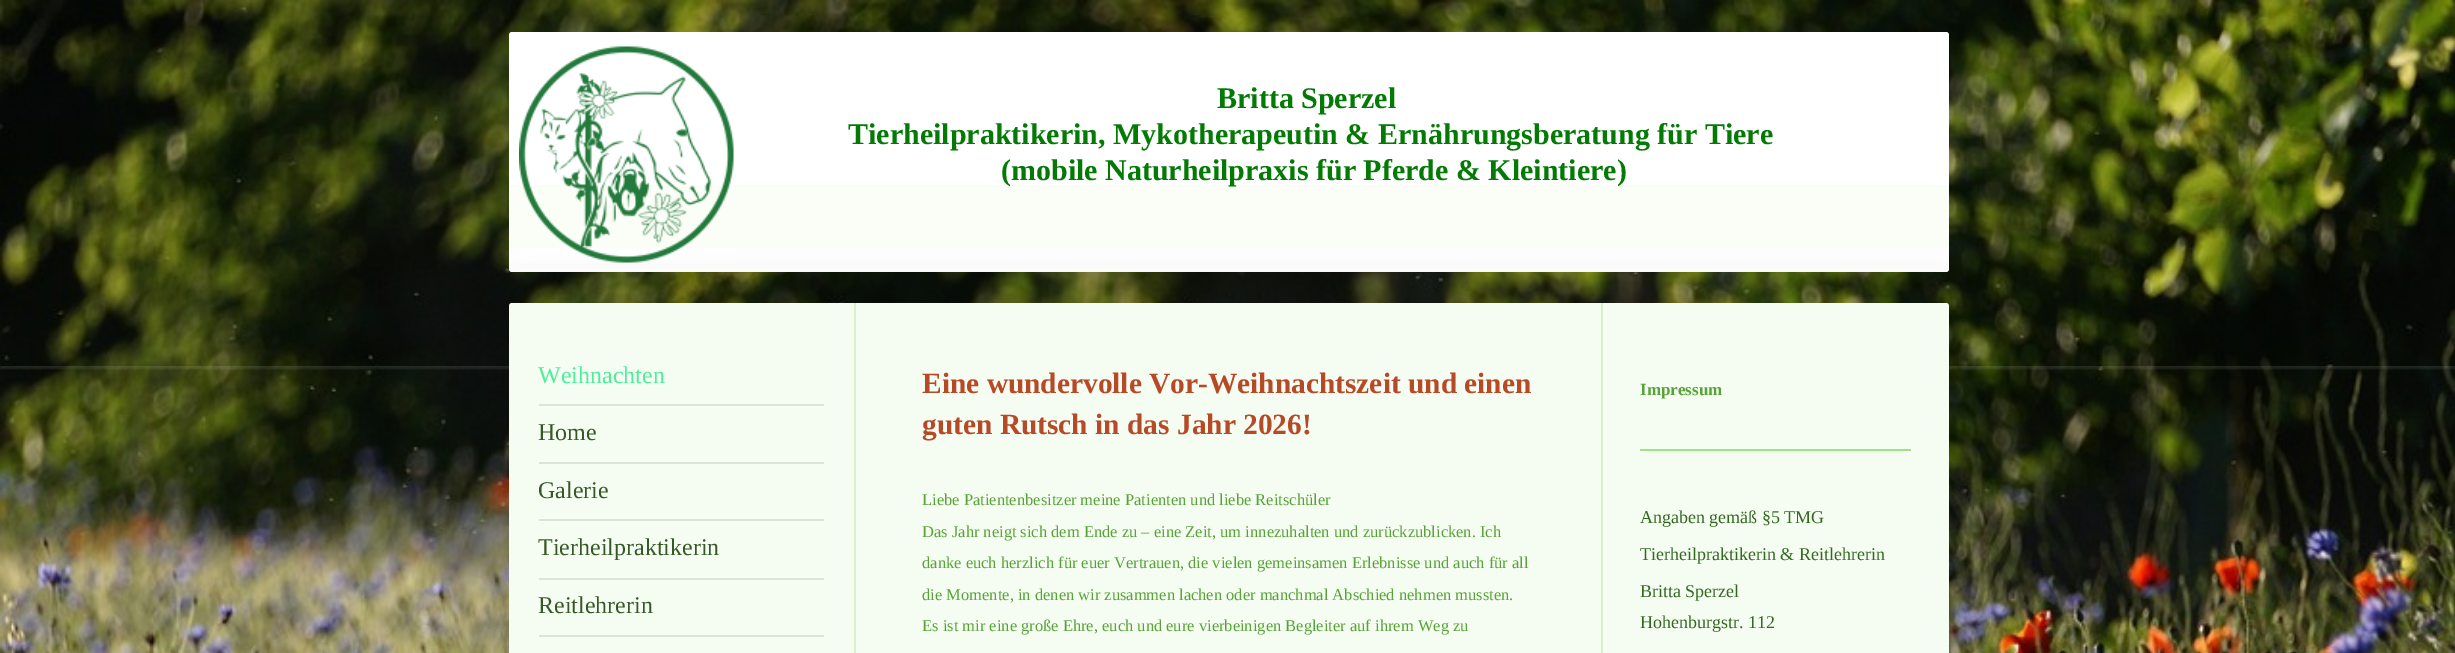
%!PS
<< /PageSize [2455 653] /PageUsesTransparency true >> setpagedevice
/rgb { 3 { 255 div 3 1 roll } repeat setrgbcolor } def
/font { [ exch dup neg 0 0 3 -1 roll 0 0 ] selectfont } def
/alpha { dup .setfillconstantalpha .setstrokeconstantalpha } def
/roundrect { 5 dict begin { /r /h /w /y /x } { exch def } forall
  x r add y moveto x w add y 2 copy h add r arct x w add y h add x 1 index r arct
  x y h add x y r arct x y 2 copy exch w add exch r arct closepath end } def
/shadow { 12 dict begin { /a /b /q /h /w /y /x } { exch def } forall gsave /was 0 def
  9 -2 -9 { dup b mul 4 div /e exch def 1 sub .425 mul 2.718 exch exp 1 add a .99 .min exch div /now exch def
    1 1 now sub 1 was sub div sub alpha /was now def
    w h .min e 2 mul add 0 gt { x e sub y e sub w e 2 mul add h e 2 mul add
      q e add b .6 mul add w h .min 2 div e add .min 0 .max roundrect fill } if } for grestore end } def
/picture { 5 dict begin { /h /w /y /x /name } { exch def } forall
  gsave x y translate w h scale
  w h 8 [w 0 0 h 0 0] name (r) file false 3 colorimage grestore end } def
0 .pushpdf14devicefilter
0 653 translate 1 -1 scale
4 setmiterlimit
255 255 255 rgb
0 0 2455 653 rectfill
(img/1.rgb) 0 0 2455 653 picture
gsave
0 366 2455 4 rectclip
0 3 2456 366 0 1 0.1 shadow
grestore
509 32 1440 240 3 roundrect fill
0 0 0 rgb
509 288 1440 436 3 22.5 0.1 shadow
251 254 247 rgb
509 185 1440 63 rectfill
(img/2.rgb) 519 46 215 217 picture
245 252 242 rgb
509 303 1440 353 3 roundrect fill
[
  [539 404 285 2 221 227 218]
  [539 462 285 2 221 227 218]
  [539 519 285 2 221 227 218]
  [539 578 285 2 221 227 218]
  [539 635 285 2 221 227 218]
  [1601 303 2 350 213 242 201]
  [854 303 2 350 213 242 201]
  [1640 449 271 2 159 226 130]
] { aload pop rgb rectfill } forall
/LiberationSerif-Bold 30 font
3 122 4 rgb
[
  [(Britta Sperzel) 1217 108]
  [(Tierheilpraktikerin, Mykotherapeutin & Ernährungsberatung für Tiere) 848 144]
  [(\(mobile Naturheilpraxis für Pferde & Kleintiere\)) 1001 180]
] { aload pop moveto show } forall
/LiberationSerif-Regular 24 font
77 238 154 rgb
538 383 moveto (Weihnachten) show
54 88 39 rgb
[
  [(Home) 538 440]
  [(Galerie) 538 498]
  [(Tierheilpraktikerin) 538 555]
  [(Reitlehrerin) 538 613]
] { aload pop moveto show } forall
/LiberationSerif-Bold 29.4 font
182 73 38 rgb
922 393 moveto (Eine wundervolle Vor-Weihnachtszeit und einen) show
922 434 moveto (guten Rutsch in das Jahr 2026!) show
/LiberationSerif-Regular 16.5 font
88 163 56 rgb
[
  [(Liebe Patientenbesitzer meine Patienten und liebe Reitschüler) 922 505]
  [(Das Jahr neigt sich dem Ende zu – eine Zeit, um innezuhalten und zurückzublicken. Ich) 922 537]
  [(danke euch herzlich für euer Vertrauen, die vielen gemeinsamen Erlebnisse und auch für all) 922 568]
  [(die Momente, in denen wir zusammen lachen oder manchmal Abschied nehmen mussten.) 922 600]
  [(Es ist mir eine große Ehre, euch und eure vierbeinigen Begleiter auf ihrem Weg zu) 922 631]
] { aload pop moveto show } forall
/LiberationSerif-Bold 17 font
1640 395 moveto (Impressum) show
/LiberationSerif-Regular 18 font
50 105 30 rgb
[
  [(Angaben gemäß §5 TMG) 1640 523]
  [(Tierheilpraktikerin & Reitlehrerin) 1640 560]
  [(Britta Sperzel) 1640 597]
  [(Hohenburgstr. 112) 1640 628]
] { aload pop moveto show } forall
.poppdf14devicefilter showpage
